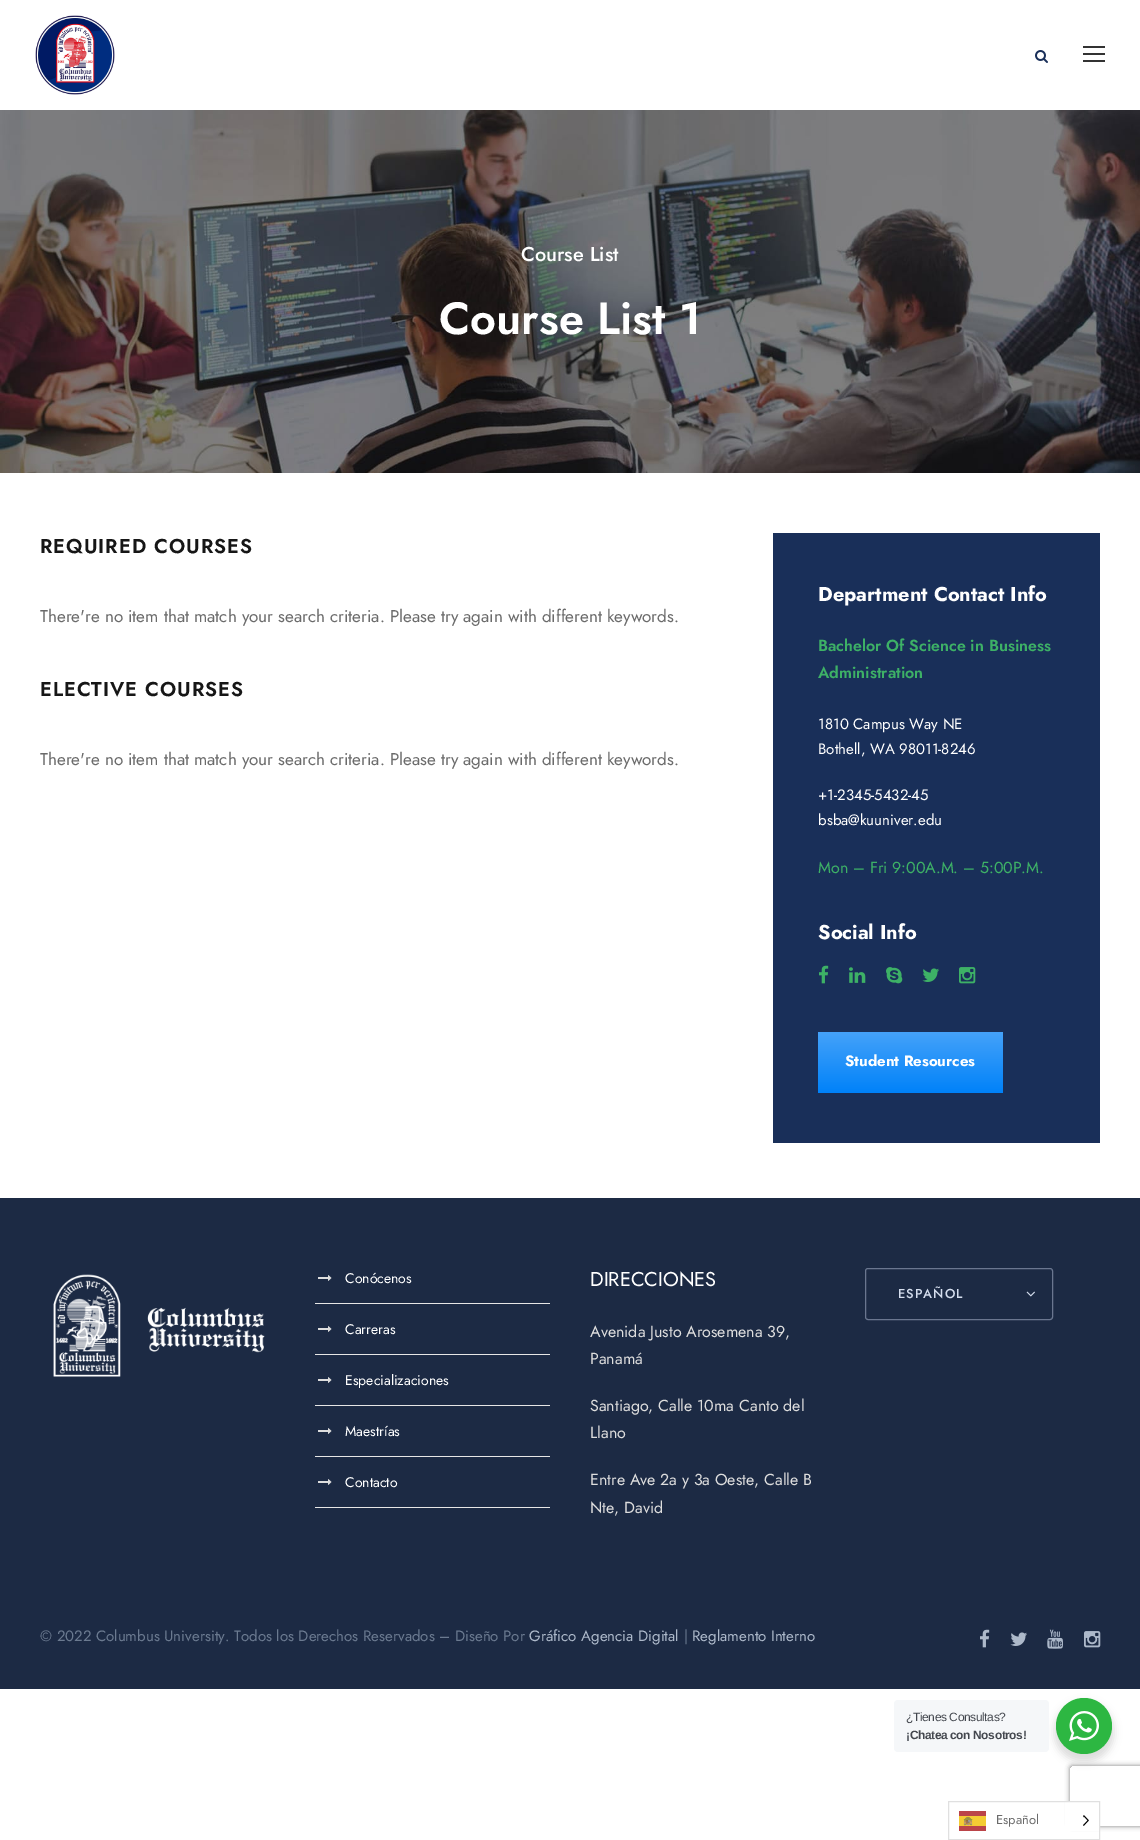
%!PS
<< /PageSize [1140 1840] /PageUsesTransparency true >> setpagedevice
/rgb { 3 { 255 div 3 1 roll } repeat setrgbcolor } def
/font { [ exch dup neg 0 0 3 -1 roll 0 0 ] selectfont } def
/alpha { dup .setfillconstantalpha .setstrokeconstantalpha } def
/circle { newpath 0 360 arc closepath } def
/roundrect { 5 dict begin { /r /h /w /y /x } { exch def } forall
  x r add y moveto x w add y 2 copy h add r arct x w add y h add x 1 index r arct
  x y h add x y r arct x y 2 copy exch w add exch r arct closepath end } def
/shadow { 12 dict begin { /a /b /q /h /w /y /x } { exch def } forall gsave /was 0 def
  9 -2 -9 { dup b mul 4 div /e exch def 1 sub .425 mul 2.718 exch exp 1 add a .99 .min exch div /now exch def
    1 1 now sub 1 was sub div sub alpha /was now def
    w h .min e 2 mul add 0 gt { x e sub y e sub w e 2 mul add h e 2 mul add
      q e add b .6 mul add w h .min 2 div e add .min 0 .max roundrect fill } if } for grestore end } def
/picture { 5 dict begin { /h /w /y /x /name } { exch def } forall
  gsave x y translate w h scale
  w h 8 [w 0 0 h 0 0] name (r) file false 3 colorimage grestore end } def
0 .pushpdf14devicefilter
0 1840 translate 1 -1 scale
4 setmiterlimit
255 255 255 rgb
0 0 1140 1840 rectfill
(img/1.rgb) 35 15 80 80 picture
(img/2.rgb) 1035 50 13 13 picture
[
  [1083 46 22 2 51 51 51]
  [1083 53 22 2 51 51 51]
  [1083 60 22 2 51 51 51]
] { aload pop rgb rectfill } forall
(img/3.rgb) 0 110 1140 363 picture
25 47 89 rgb
773 533 327 610 rectfill
(img/4.rgb) 819 965 10 19 picture
(img/5.rgb) 849 967 17 16 picture
(img/6.rgb) 886 967 17 17 picture
(img/7.rgb) 922 968 17 14 picture
(img/8.rgb) 959 967 17 17 picture
gsave 818 1032 185 61 2 roundrect clip newpath
<< /ShadingType 2 /ColorSpace /DeviceRGB /Coords [911 1032 911 1093] /Extend [true true] /Function << /FunctionType 2 /Domain [0 1] /C0 [0.271 0.635 0.976] /C1 [0 0.51 0.98] /N 1 >> >> shfill grestore
28 42 68 rgb
0 1198 1140 491 rectfill
(img/9.rgb) 53 1274 212 103 picture
230 230 230 rgb
315 1303 235 1 rectfill
(img/10.rgb) 318 1275 14 6 picture
315 1354 235 1 rectfill
(img/10.rgb) 318 1326 14 6 picture
315 1405 235 1 rectfill
(img/10.rgb) 318 1377 14 6 picture
315 1456 235 1 rectfill
(img/10.rgb) 318 1428 14 6 picture
315 1507 235 1 rectfill
(img/10.rgb) 318 1479 14 6 picture
106 118 143 rgb
865.5 1268.5 187 51 2.5 roundrect stroke
(img/11.rgb) 1026 1291 9 6 picture
(img/12.rgb) 980 1629 10 19 picture
(img/13.rgb) 1010 1632 17 14 picture
(img/14.rgb) 1047 1629 16 20 picture
(img/15.rgb) 1084 1631 17 17 picture
0 0 0 rgb
1054 1702 60 60 30 4 0.14 shadow
245 247 249 rgb
894 1700 155 52 4 roundrect fill
45 183 66 rgb
1084 1726 28 circle fill
(img/16.rgb) 1069 1711 30 30 picture
gsave
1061 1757 moveto 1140 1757 lineto 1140 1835 lineto 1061 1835 lineto closepath 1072 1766 moveto 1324 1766 lineto 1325 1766 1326 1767 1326 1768 curveto 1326 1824 lineto 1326 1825 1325 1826 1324 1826 curveto 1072 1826 lineto 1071 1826 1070 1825 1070 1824 curveto 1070 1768 lineto 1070 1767 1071 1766 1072 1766 curveto closepath eoclip newpath
128 128 128 rgb
1070 1766 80 60 2 2.5 1 shadow
grestore
255 255 255 rgb
1065 1802 34 29 rectfill
224 224 224 rgb
948.5 1801.5 151 38 rectstroke
(img/17.rgb) 959 1811 27 20 picture
(img/18.rgb) 1083 1815 6 11 picture
/Jost-Medium 20 font
255 255 255 rgb
521 261 moveto (Course List) show
/Jost-SemiBold 45 font
439 334 moveto (Course List 1) show
/Jost-SemiBold 20 font
22 22 22 rgb
40 553 moveto 1 0 (REQUIRED COURSES) ashow
/Jost-Regular 17 font
107 107 107 rgb
40 622 moveto (There're no item that match your search criteria. Please try again with different keywords.) show
/Jost-SemiBold 20 font
22 22 22 rgb
40 696 moveto 1 0 (ELECTIVE COURSES) ashow
/Jost-Regular 17 font
107 107 107 rgb
40 765 moveto (There're no item that match your search criteria. Please try again with different keywords.) show
/Jost-Bold 20 font
255 255 255 rgb
818 601 moveto (Department Contact Info) show
/Jost-SemiBold 16 font
61 177 102 rgb
818 651 moveto (Bachelor Of Science in Business) show
818 678 moveto (Administration) show
/Jost-Regular 15 font
255 255 255 rgb
[
  [(1810 Campus Way NE) 818 729]
  [(Bothell, WA 98011-8246) 818 754]
  [(+1-2345-5432-45) 818 800]
  [(bsba@kuuniver.edu) 818 825]
] { aload pop moveto show } forall
/Jost-Regular 16 font
61 177 102 rgb
818 873 moveto (Mon – Fri 9:00A.M. – 5:00P.M.) show
/Jost-Bold 20 font
255 255 255 rgb
818 939 moveto (Social Info) show
/Jost-Bold 15 font
845 1066 moveto (Student Resources) show
/Jost-Regular 14 font
[
  [(Conócenos) 345 1283]
  [(Carreras) 345 1334]
  [(Especializaciones) 345 1385]
  [(Maestrías) 345 1436]
  [(Contacto) 345 1487]
] { aload pop moveto show } forall
/Jost-Regular 20 font
590 1286 moveto (DIRECCIONES) show
/Jost-Regular 16 font
221 221 221 rgb
[
  [(Avenida Justo Arosemena 39,) 590 1337]
  [(Panamá) 590 1364]
  [(Santiago, Calle 10ma Canto del) 590 1411]
  [(Llano) 590 1438]
  [(Entre Ave 2a y 3a Oeste, Calle B) 590 1485]
  [(Nte, David) 590 1513]
] { aload pop moveto show } forall
/Jost-Medium 13 font
213 222 238 rgb
898 1298 moveto 1 0 (ESPAÑOL) ashow
/Jost-Regular 15 font
107 122 144 rgb
40 1641 moveto (© 2022 Columbus University. Todos los Derechos Reservados – Diseño Por) show
173 185 202 rgb
529 1641 moveto (Gráfico Agencia Digital) show
107 122 144 rgb
684 1641 moveto (|) show
173 185 202 rgb
692 1641 moveto (Reglamento Interno) show
/LiberationSans-Regular 12 font
67 71 78 rgb
906 1721 moveto -0.4 0 (¿Tienes Consultas?) ashow
/LiberationSans-Bold 12 font
906 1739 moveto -0.4 0 (¡Chatea con Nosotros!) ashow
/Jost-Regular 13 font
107 107 107 rgb
996 1824 moveto (Español) show
.poppdf14devicefilter showpage
